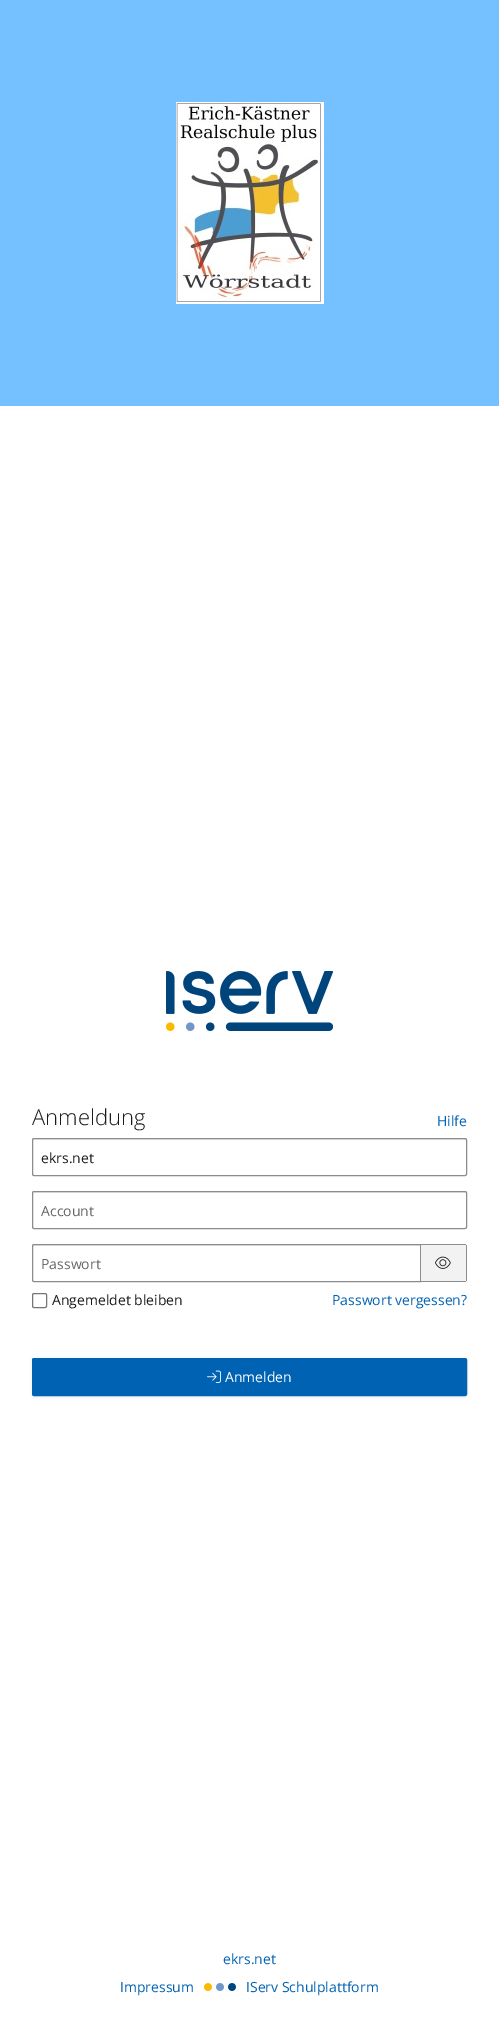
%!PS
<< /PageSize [499 2029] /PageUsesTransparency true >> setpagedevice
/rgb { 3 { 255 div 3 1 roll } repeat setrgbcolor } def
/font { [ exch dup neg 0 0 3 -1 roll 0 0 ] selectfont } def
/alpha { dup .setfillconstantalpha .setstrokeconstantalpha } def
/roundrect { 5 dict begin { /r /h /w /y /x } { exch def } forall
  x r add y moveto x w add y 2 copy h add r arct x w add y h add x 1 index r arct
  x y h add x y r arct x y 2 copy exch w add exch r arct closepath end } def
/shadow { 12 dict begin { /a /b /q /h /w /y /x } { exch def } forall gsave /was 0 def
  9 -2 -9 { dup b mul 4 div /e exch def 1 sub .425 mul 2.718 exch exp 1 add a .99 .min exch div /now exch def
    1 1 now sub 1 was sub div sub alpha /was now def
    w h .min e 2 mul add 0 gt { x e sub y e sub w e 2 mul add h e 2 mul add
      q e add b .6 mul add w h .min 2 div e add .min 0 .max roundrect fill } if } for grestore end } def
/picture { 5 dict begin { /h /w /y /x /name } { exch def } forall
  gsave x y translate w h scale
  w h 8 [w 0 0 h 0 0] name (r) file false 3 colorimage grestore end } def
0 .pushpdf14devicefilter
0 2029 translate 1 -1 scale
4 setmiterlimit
255 255 255 rgb
0 0 499 2029 rectfill
117 193 255 rgb
0 0 499 406 rectfill
(img/1.rgb) 176 102 148 202 picture
(img/2.rgb) 166 971 167 60 picture
236 236 236 rgb
34 1140 moveto 465 1140 lineto 466 1140 lineto 466 1141 lineto 466 1140 466 1139 465 1139 curveto 34 1139 lineto 33 1140 lineto 33 1141 lineto 33 1140 33 1140 34 1140 curveto closepath fill
140 140 140 rgb
32.5 1138.5 434 37 1.5 roundrect stroke
236 236 236 rgb
34 1193 moveto 465 1193 lineto 466 1193 lineto 466 1194 lineto 466 1193 466 1192 465 1192 curveto 34 1192 lineto 33 1193 lineto 33 1194 lineto 33 1193 33 1193 34 1193 curveto closepath fill
140 140 140 rgb
32.5 1191.5 434 37 1.5 roundrect stroke
236 236 236 rgb
34 1246 moveto 420 1246 lineto 420 1245 lineto 34 1245 lineto 33 1245 33 1246 33 1247 curveto closepath fill
140 140 140 rgb
34 1244.5 moveto 420.5 1244.5 lineto 420.5 1281.5 lineto 34 1281.5 lineto 33 1281.5 32.5 1281 32.5 1280 curveto 32.5 1246 lineto 32.5 1245 33 1244.5 34 1244.5 curveto closepath stroke
242 242 242 rgb
421 1244 moveto 465 1244 lineto 466 1244 467 1245 467 1246 curveto 467 1280 lineto 467 1281 466 1282 465 1282 curveto 421 1282 lineto closepath fill
[
  [421 1244 45 1 140 140 140]
  [466 1245 1 36 140 140 140]
  [421 1281 45 1 140 140 140]
] { aload pop rgb rectfill } forall
(img/3.rgb) 435 1256 16 13 picture
118 118 118 rgb
32.5 1293.5 14 14 1.5 roundrect stroke
0 0 0 rgb
32 1359 435 38 2 1.5 0.08 shadow
0 98 179 rgb
32.5 1358.5 434 37 1.5 roundrect gsave fill grestore
stroke
(img/4.rgb) 207 1370 14 13 picture
(img/5.rgb) 204 1983 8 8 picture
(img/6.rgb) 216 1983 8 8 picture
(img/7.rgb) 228 1983 8 8 picture
/OpenSans-Light 22 font
26 26 26 rgb
32 1125 moveto (Anmeldung) show
/OpenSans-Regular 14 font
0 98 179 rgb
437 1126 moveto (Hilfe) show
26 26 26 rgb
41 1163 moveto (ekrs.net) show
102 102 102 rgb
41 1216 moveto (Account) show
41 1269 moveto (Passwort) show
26 26 26 rgb
52 1305 moveto (Angemeldet bleiben) show
0 98 179 rgb
332 1305 moveto (Passwort vergessen?) show
255 255 255 rgb
225 1382 moveto (Anmelden) show
0 98 179 rgb
[
  [(ekrs.net) 223 1964]
  [(Impressum) 120 1992]
  [(IServ Schulplattform) 246 1992]
] { aload pop moveto show } forall
.poppdf14devicefilter showpage
